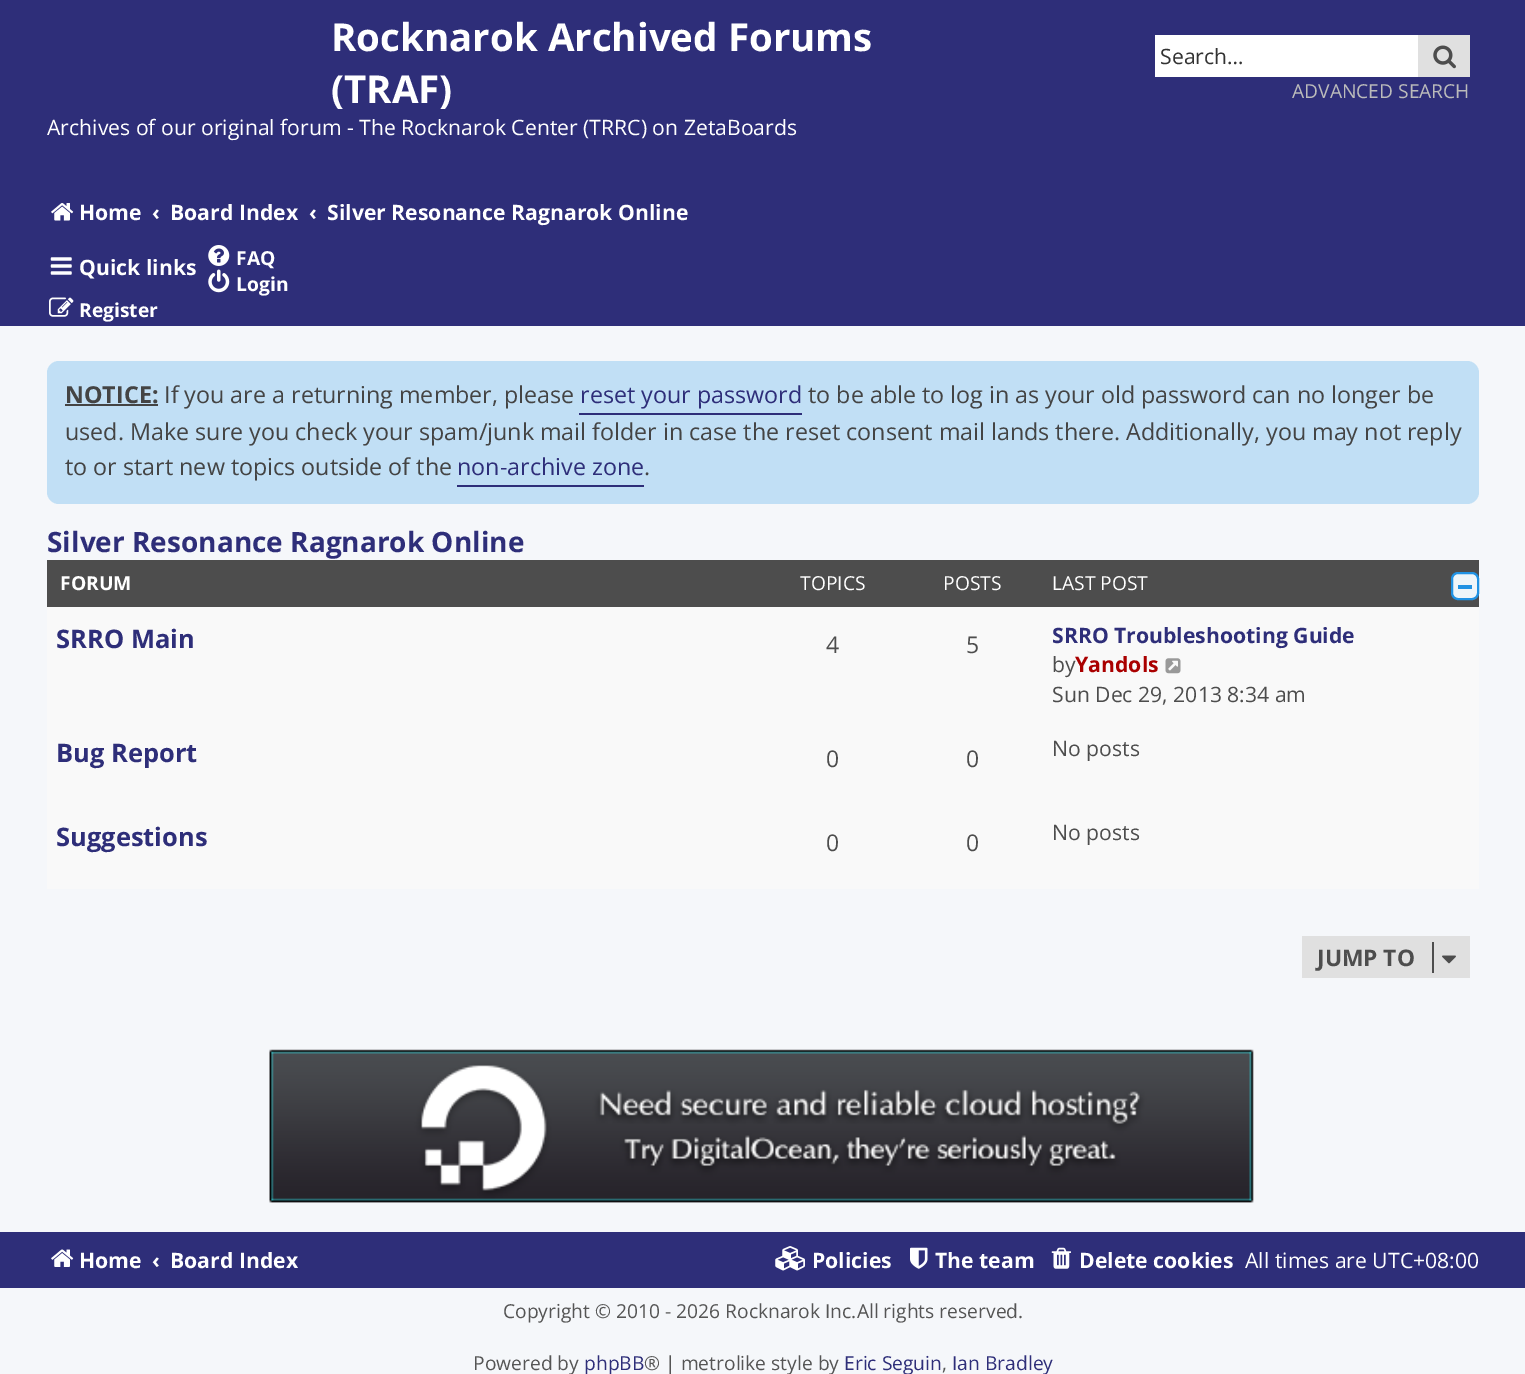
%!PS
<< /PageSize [1525 1374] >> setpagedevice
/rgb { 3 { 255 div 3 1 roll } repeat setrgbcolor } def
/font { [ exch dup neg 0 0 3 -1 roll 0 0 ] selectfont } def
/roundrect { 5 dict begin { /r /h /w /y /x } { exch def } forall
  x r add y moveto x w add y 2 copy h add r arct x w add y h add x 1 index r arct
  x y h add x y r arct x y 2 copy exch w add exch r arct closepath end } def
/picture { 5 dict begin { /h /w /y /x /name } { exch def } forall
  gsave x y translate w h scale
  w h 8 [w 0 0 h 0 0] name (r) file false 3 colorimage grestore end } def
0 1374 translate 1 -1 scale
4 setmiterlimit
245 247 250 rgb
0 0 1525 1374 rectfill
[
  [0 0 1525 326 46 46 121]
  [1155 35 263 42 255 255 255]
  [1418 35 52 42 224 224 224]
] { aload pop rgb rectfill } forall
(img/1.rgb) 1433 45 23 24 picture
(img/2.rgb) 51 203 23 18 picture
(img/3.rgb) 208 245 22 21 picture
(img/4.rgb) 208 269 22 24 picture
(img/5.rgb) 49 297 25 20 picture
(img/6.rgb) 50 257 22 18 picture
193 223 245 rgb
47 361 1432 143 12 roundrect fill
[
  [65 404 93 2 68 68 68]
  [579 413 223 2 46 46 121]
  [457 485 187 2 46 46 121]
  [47 560 1432 47 77 77 77]
] { aload pop rgb rectfill } forall
238 245 249 rgb
1452 573 26 26 6 roundrect gsave fill grestore
32 146 227 rgb
2 setlinewidth
stroke
1458 585 14 4 rectfill
249 249 249 rgb
47 607 1432 282 rectfill
(img/7.rgb) 1165 658 16 16 picture
224 224 224 rgb
1302 936 168 42 rectfill
77 77 77 rgb
1432 942 2 31 rectfill
(img/8.rgb) 1442 955 14 9 picture
(img/9.rgb) 269 1049 985 154 picture
46 46 121 rgb
0 1232 1525 56 rectfill
(img/10.rgb) 51 1249 23 18 picture
(img/11.rgb) 775 1246 30 25 picture
(img/12.rgb) 910 1247 18 22 picture
(img/13.rgb) 1051 1247 20 22 picture
/OpenSans-Bold 38.5 font
255 255 255 rgb
331 51 moveto (Rocknarok Archived Forums) show
331 103 moveto (\(TRAF\)) show
/OpenSans-Regular 21.2 font
47 135 moveto (Archives of our original forum - The Rocknarok Center \(TRRC\) on ZetaBoards) show
51 51 51 rgb
1160 64 moveto (Search…) show
/OpenSans-Regular 19.25 font
187 187 187 rgb
1292 98 moveto (ADVANCED SEARCH) show
/OpenSans-Bold 21.2 font
255 255 255 rgb
[
  [(Home) 79 220]
  [(‹) 152 220]
  [(Board Index) 170 220]
  [(‹) 309 220]
  [(Silver Resonance Ragnarok Online) 327 220]
] { aload pop moveto show } forall
/OpenSans-Bold 19.25 font
[
  [(FAQ) 236 265]
  [(Login) 236 291]
  [(Register) 79 317]
] { aload pop moveto show } forall
/OpenSans-Bold 21.2 font
79 275 moveto (Quick links) show
/OpenSans-Bold 23.3 font
68 68 68 rgb
65 403 moveto (NOTICE:) show
/OpenSans-Regular 23.3 font
164 403 moveto (If you are a returning member, please) show
46 46 121 rgb
580 403 moveto (reset your password) show
68 68 68 rgb
[
  [(to be able to log in as your old password can no longer be) 808 403]
  [(used. Make sure you check your spam/junk mail folder in case the reset consent mail lands there. Additionally, you may not reply) 65 440]
  [(to or start new topics outside of the) 65 475]
] { aload pop moveto show } forall
46 46 121 rgb
457 475 moveto (non-archive zone) show
68 68 68 rgb
644 475 moveto (.) show
/OpenSans-Bold 28 font
46 46 121 rgb
47 552 moveto (Silver Resonance Ragnarok Online) show
/OpenSans-Bold 19.25 font
255 255 255 rgb
60 590 moveto (FORUM) show
/OpenSans-Regular 19.25 font
[
  [(TOPICS) 800 590]
  [(POSTS) 943 590]
  [(LAST POST) 1052 590]
] { aload pop moveto show } forall
/OpenSans-Bold 25.5 font
46 46 121 rgb
56 648 moveto (SRRO Main) show
/OpenSans-Regular 23 font
77 77 77 rgb
826 653 moveto (4) show
966 653 moveto (5) show
/OpenSans-Bold 21.2 font
46 46 121 rgb
1052 643 moveto (SRRO Troubleshooting Guide) show
/OpenSans-Regular 21.2 font
77 77 77 rgb
1052 672 moveto (by) show
/OpenSans-Bold 21.2 font
170 0 0 rgb
1075 672 moveto (Yandols) show
/OpenSans-Regular 21.2 font
77 77 77 rgb
1052 702 moveto (Sun Dec 29, 2013 8:34 am) show
/OpenSans-Bold 25.5 font
46 46 121 rgb
56 762 moveto (Bug Report) show
/OpenSans-Regular 23 font
77 77 77 rgb
826 767 moveto (0) show
966 767 moveto (0) show
/OpenSans-Regular 21.2 font
1052 756 moveto (No posts) show
/OpenSans-Bold 25.5 font
46 46 121 rgb
56 846 moveto (Suggestions) show
/OpenSans-Regular 23 font
77 77 77 rgb
826 851 moveto (0) show
966 851 moveto (0) show
/OpenSans-Regular 21.2 font
1052 840 moveto (No posts) show
/OpenSans-Bold 22.75 font
1317 966 moveto (JUMP TO) show
/OpenSans-Bold 21.2 font
255 255 255 rgb
[
  [(Home) 79 1268]
  [(‹) 152 1268]
  [(Board Index) 170 1268]
  [(Policies) 812 1268]
  [(The team) 935 1268]
  [(Delete cookies) 1079 1268]
] { aload pop moveto show } forall
/OpenSans-Regular 21.2 font
1245 1268 moveto (All times are UTC+08:00) show
/OpenSans-Regular 19.25 font
85 85 85 rgb
503 1318 moveto (Copyright © 2010 - 2026 Rocknarok Inc.All rights reserved.) show
473 1370 moveto (Powered by) show
46 46 121 rgb
584 1370 moveto (phpBB) show
85 85 85 rgb
644 1370 moveto (® | metrolike style by) show
46 46 121 rgb
844 1370 moveto (Eric Seguin) show
85 85 85 rgb
942 1370 moveto (,) show
46 46 121 rgb
952 1370 moveto (Ian Bradley) show
showpage
